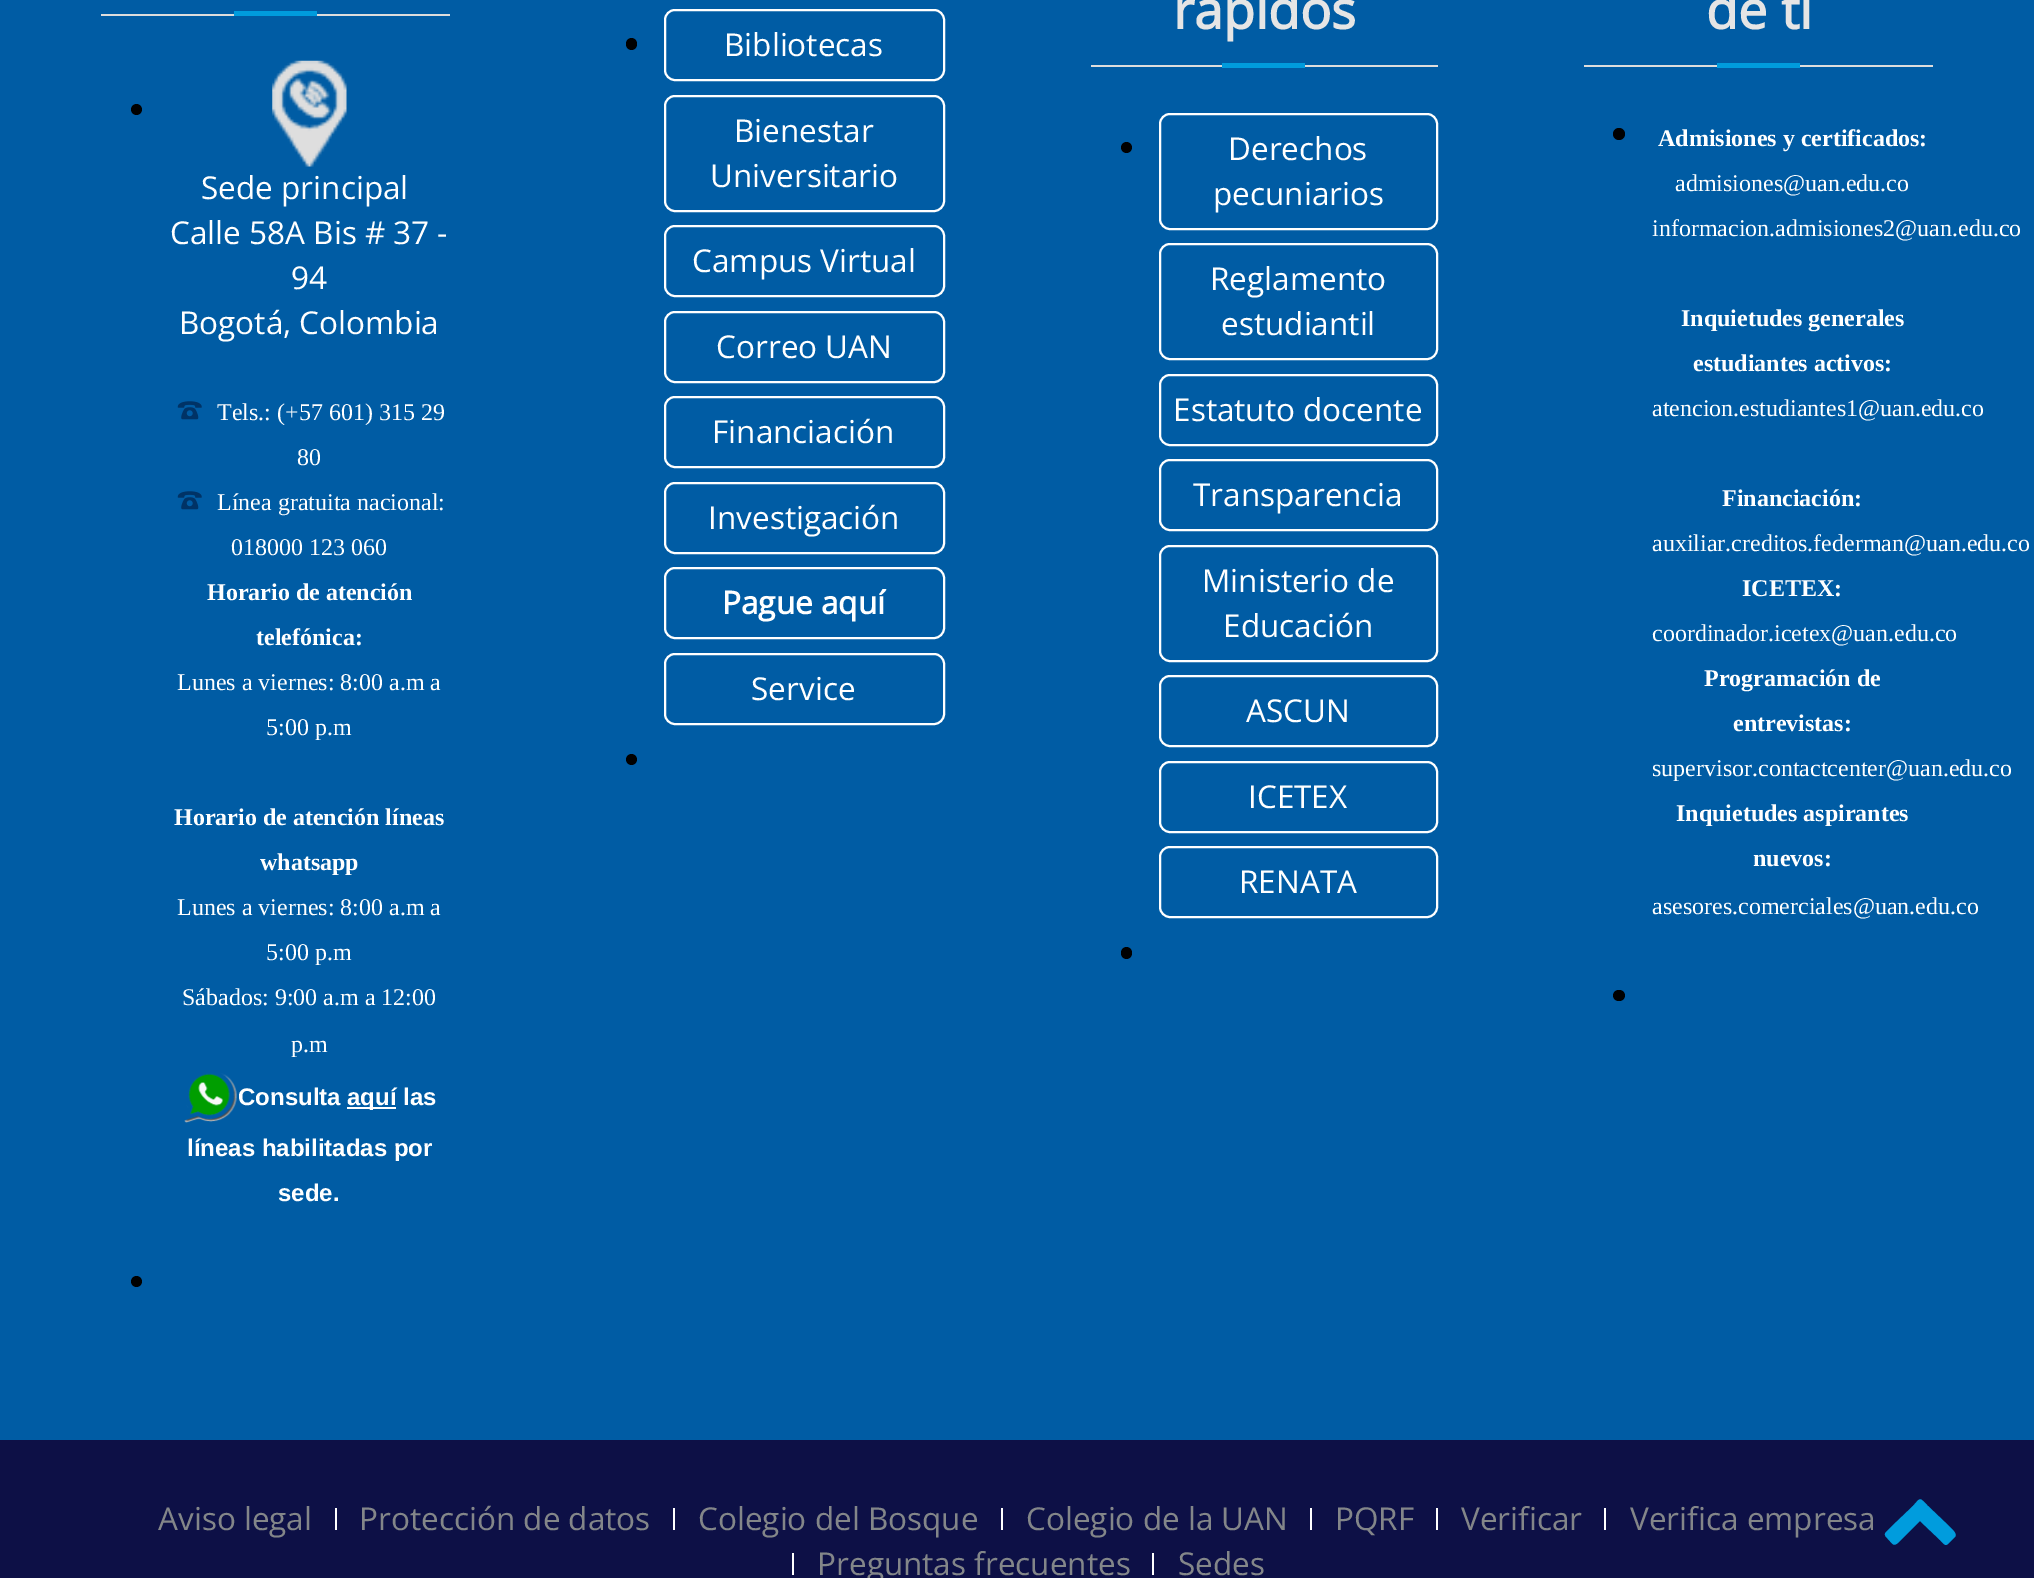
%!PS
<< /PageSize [2034 1578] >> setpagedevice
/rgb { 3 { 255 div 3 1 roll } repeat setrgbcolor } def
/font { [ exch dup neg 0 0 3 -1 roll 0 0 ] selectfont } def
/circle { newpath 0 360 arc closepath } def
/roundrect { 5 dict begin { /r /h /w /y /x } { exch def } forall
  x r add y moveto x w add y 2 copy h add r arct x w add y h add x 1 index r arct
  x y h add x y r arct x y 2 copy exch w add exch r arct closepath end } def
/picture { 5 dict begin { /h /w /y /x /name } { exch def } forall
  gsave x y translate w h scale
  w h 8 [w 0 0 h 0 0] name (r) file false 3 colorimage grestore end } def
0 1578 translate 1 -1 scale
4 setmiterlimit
0 92 164 rgb
0 0 2034 1578 rectfill
221 221 221 rgb
101 14 349 2 rectfill
0 156 221 rgb
234 11 83 5 rectfill
0 0 0 rgb
136.5 109.5 5.5 circle fill
(img/1.rgb) 272 60 75 107 picture
(img/2.rgb) 177 401 25 19 picture
(img/2.rgb) 177 491 25 19 picture
(img/3.rgb) 184 1073 53 50 picture
255 255 255 rgb
347 1107 49 2 rectfill
0 0 0 rgb
136.5 1281.5 5.5 circle fill
626 38 11 12 5.5 roundrect fill
255 255 255 rgb
2 setlinewidth
665 10 279 70 10 roundrect stroke
665 96 279 115 10 roundrect stroke
665 226 279 70 10 roundrect stroke
665 312 279 70 10 roundrect stroke
665 397 279 70 10 roundrect stroke
665 483 279 70 10 roundrect stroke
665 568 279 70 10 roundrect stroke
665 654 279 70 10 roundrect stroke
0 0 0 rgb
631.5 759.5 5.5 circle fill
221 221 221 rgb
1091 65 347 2 rectfill
0 156 221 rgb
1222 63 83 5 rectfill
0 0 0 rgb
1126.5 147.5 5.5 circle fill
255 255 255 rgb
1160 114 277 115 10 roundrect stroke
1160 244 277 115 10 roundrect stroke
1160 375 277 70 10 roundrect stroke
1160 460 277 70 10 roundrect stroke
1160 546 277 115 10 roundrect stroke
1160 676 277 70 10 roundrect stroke
1160 762 277 70 10 roundrect stroke
1160 847 277 70 10 roundrect stroke
0 0 0 rgb
1121 947 11 12 5.5 roundrect fill
221 221 221 rgb
1584 65 349 2 rectfill
0 156 221 rgb
1717 63 83 5 rectfill
0 0 0 rgb
1619 134 6 circle fill
1613 990 12 11 5.5 roundrect fill
[
  [0 1440 2034 138 13 16 70]
  [335 1508 2 22 255 255 255]
  [673 1508 2 22 255 255 255]
  [1001 1508 2 22 255 255 255]
  [1310 1508 2 22 255 255 255]
  [1436 1508 2 22 255 255 255]
  [1604 1508 2 22 255 255 255]
  [792 1553 2 22 255 255 255]
  [1152 1553 2 22 255 255 255]
] { aload pop rgb rectfill } forall
0 156 221 rgb
1955 1537 moveto 1949 1543 lineto 1945 1547 1944 1544 1940 1540 curveto 1920 1521 lineto 1901 1540 lineto 1893 1548 1894 1545 1887 1538 curveto 1882 1533 1887 1532 1891 1527 curveto 1913 1506 lineto 1921 1497 1919 1497 1928 1506 curveto 1950 1527 lineto 1950 1528 1958 1533 1955 1537 curveto closepath fill
/OpenSans-Regular 31.5 font
255 255 255 rgb
[
  [(Sede principal) 201 199]
  [(Calle 58A Bis # 37 -) 170 244]
  [(94) 291 289]
  [(Bogotá, Colombia) 179 334]
] { aload pop moveto show } forall
/LiberationSerif-Regular 24 font
[
  [(Tels.: \(+57 601\) 315 29) 217 420]
  [(80) 297 465]
  [(Línea gratuita nacional:) 217 510]
  [(018000 123 060) 231 555]
] { aload pop moveto show } forall
/LiberationSerif-Bold 24 font
207 600 moveto (Horario de atención) show
256 645 moveto (telefónica:) show
/LiberationSerif-Regular 24 font
177 690 moveto (Lunes a viernes: 8:00 a.m a) show
266 735 moveto (5:00 p.m) show
/LiberationSerif-Bold 24 font
174 825 moveto (Horario de atención líneas) show
260 870 moveto (whatsapp) show
/LiberationSerif-Regular 24 font
[
  [(Lunes a viernes: 8:00 a.m a) 177 915]
  [(5:00 p.m) 266 960]
  [(Sábados: 9:00 a.m a 12:00) 182 1005]
  [(p.m) 291 1052]
] { aload pop moveto show } forall
/LiberationSans-Bold 24 font
[
  [(Consulta) 238 1105]
  [(aquí las) 347 1105]
  [(líneas habilitadas por) 187 1156]
  [(sede.) 278 1201]
] { aload pop moveto show } forall
/OpenSans-Regular 31.5 font
[
  [(Bibliotecas) 724 56]
  [(Bienestar) 734 142]
  [(Universitario) 710 187]
  [(Campus Virtual) 692 272]
  [(Correo UAN) 716 358]
  [(Financiación) 712 443]
  [(Investigación) 708 529]
] { aload pop moveto show } forall
/OpenSans-Bold 31.5 font
722 614 moveto (Pague aquí) show
/OpenSans-Regular 31.5 font
751 700 moveto (Service) show
/OpenSans-Bold 52 font
229 229 229 rgb
1173 29 moveto (rápidos) show
/OpenSans-Regular 31.5 font
255 255 255 rgb
[
  [(Derechos) 1228 160]
  [(pecuniarios) 1213 205]
  [(Reglamento) 1210 290]
  [(estudiantil) 1221 335]
  [(Estatuto docente) 1173 421]
  [(Transparencia) 1193 506]
  [(Ministerio de) 1202 592]
  [(Educación) 1223 637]
  [(ASCUN) 1246 722]
  [(ICETEX) 1248 808]
  [(RENATA) 1239 893]
] { aload pop moveto show } forall
/OpenSans-Bold 52 font
229 229 229 rgb
1706 29 moveto (de tí) show
/LiberationSerif-Bold 24 font
255 255 255 rgb
1658 146 moveto (Admisiones y certificados:) show
/LiberationSerif-Regular 24 font
1675 191 moveto (admisiones@uan.edu.co) show
1652 236 moveto (informacion.admisiones2@uan.edu.co) show
/LiberationSerif-Bold 24 font
1681 326 moveto (Inquietudes generales) show
1693 371 moveto (estudiantes activos:) show
/LiberationSerif-Regular 24 font
1652 416 moveto (atencion.estudiantes1@uan.edu.co) show
/LiberationSerif-Bold 24 font
1722 506 moveto (Financiación:) show
/LiberationSerif-Regular 24 font
1652 551 moveto (auxiliar.creditos.federman@uan.edu.co) show
/LiberationSerif-Bold 24 font
1742 596 moveto (ICETEX:) show
/LiberationSerif-Regular 24 font
1652 641 moveto (coordinador.icetex@uan.edu.co) show
/LiberationSerif-Bold 24 font
1704 686 moveto (Programación de) show
1733 731 moveto (entrevistas:) show
/LiberationSerif-Regular 24 font
1652 776 moveto (supervisor.contactcenter@uan.edu.co) show
/LiberationSerif-Bold 24 font
1676 821 moveto (Inquietudes aspirantes) show
1753 866 moveto (nuevos:) show
/LiberationSerif-Regular 24 font
1652 914 moveto (asesores.comerciales@uan.edu.co) show
/OpenSans-Regular 31.5 font
131 134 137 rgb
[
  [(Aviso legal) 158 1530]
  [(Protección de datos) 359 1530]
  [(Colegio del Bosque) 698 1530]
  [(Colegio de la UAN) 1026 1530]
  [(PQRF) 1335 1530]
  [(Verificar) 1461 1530]
  [(Verifica empresa) 1630 1530]
  [(Preguntas frecuentes) 817 1575]
  [(Sedes) 1178 1575]
] { aload pop moveto show } forall
showpage
